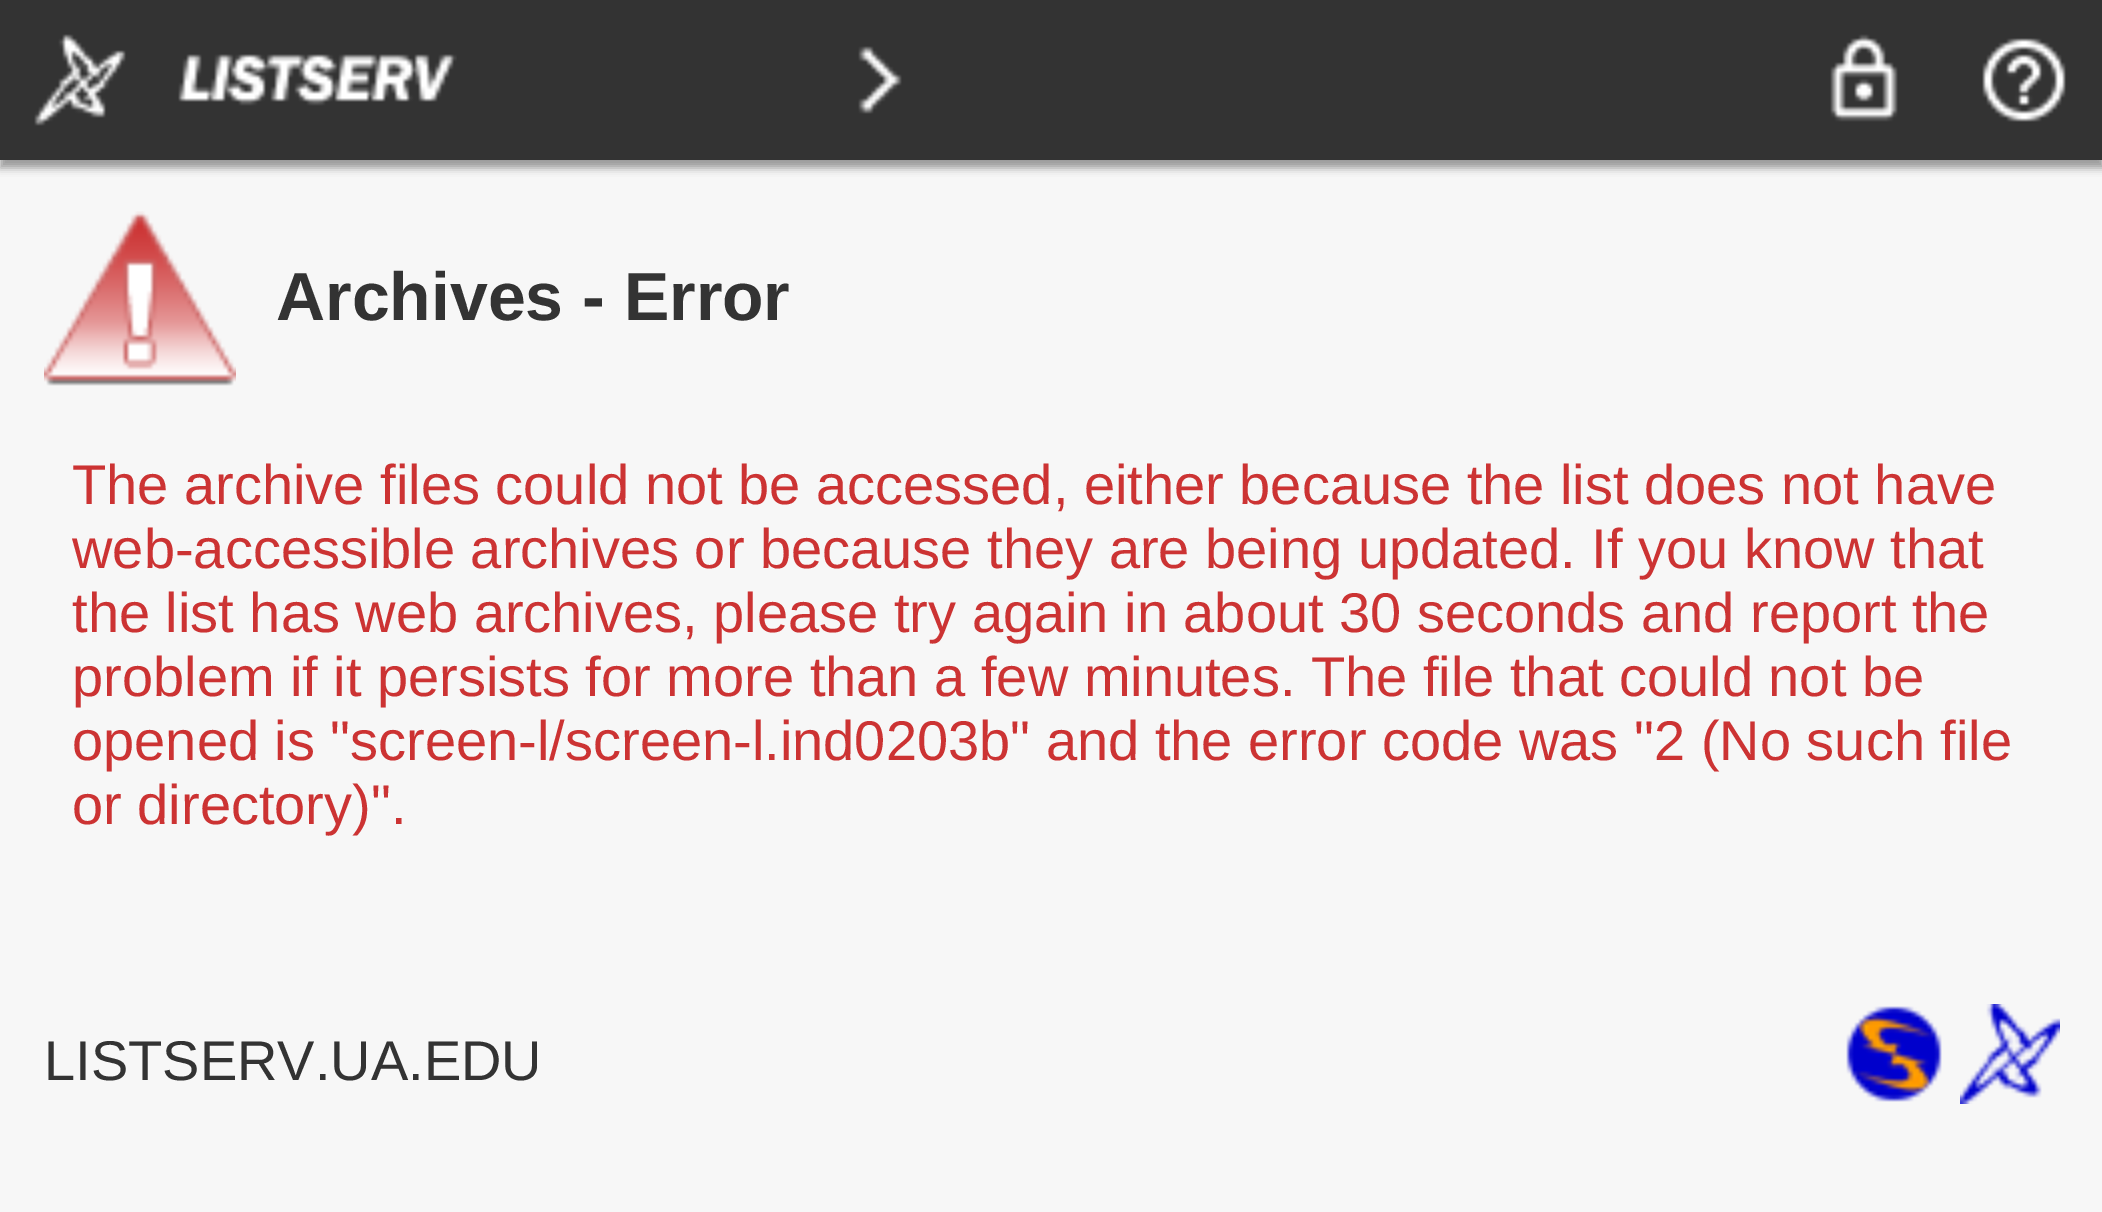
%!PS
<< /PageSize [2102 1212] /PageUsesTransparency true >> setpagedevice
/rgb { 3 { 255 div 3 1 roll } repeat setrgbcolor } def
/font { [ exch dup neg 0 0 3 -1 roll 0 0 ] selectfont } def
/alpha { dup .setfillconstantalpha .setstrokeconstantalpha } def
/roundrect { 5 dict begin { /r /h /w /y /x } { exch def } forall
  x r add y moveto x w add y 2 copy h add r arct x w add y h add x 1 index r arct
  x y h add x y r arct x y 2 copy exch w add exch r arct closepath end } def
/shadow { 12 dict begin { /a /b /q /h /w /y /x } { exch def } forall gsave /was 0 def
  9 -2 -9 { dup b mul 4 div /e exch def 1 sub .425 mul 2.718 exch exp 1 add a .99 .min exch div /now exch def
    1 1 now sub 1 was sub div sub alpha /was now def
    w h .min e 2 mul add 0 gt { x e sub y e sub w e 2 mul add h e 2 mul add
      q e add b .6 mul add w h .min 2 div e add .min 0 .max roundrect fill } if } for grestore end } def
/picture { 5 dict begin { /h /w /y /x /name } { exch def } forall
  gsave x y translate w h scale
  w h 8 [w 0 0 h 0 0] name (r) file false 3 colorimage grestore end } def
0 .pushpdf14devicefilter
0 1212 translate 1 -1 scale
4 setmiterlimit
247 247 247 rgb
0 0 2102 1212 rectfill
153 153 153 rgb
0 8 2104 160 0 4 1 shadow
51 51 51 rgb
0 0 2102 160 rectfill
(img/1.rgb) 34 34 92 92 picture
(img/2.rgb) 178 54 279 52 picture
(img/3.rgb) 858 46 44 68 picture
(img/4.rgb) 1830 34 68 88 picture
(img/5.rgb) 1982 38 84 84 picture
(img/6.rgb) 44 211 192 175 picture
(img/7.rgb) 1846 1006 96 96 picture
(img/8.rgb) 1960 1004 100 100 picture
/LiberationSans-Bold 68 font
276 320 moveto (Archives - Error) show
/LiberationSans-Regular 56 font
204 51 51 rgb
[
  [(The archive files could not be accessed, either because the list does not have) 72 504]
  [(web-accessible archives or because they are being updated. If you know that) 72 568]
  [(the list has web archives, please try again in about 30 seconds and report the) 72 632]
  [(problem if it persists for more than a few minutes. The file that could not be) 72 696]
  [(opened is "screen-l/screen-l.ind0203b" and the error code was "2 \(No such file) 72 760]
  [(or directory\)".) 72 824]
] { aload pop moveto show } forall
51 51 51 rgb
44 1080 moveto (LISTSERV.UA.EDU) show
.poppdf14devicefilter showpage
